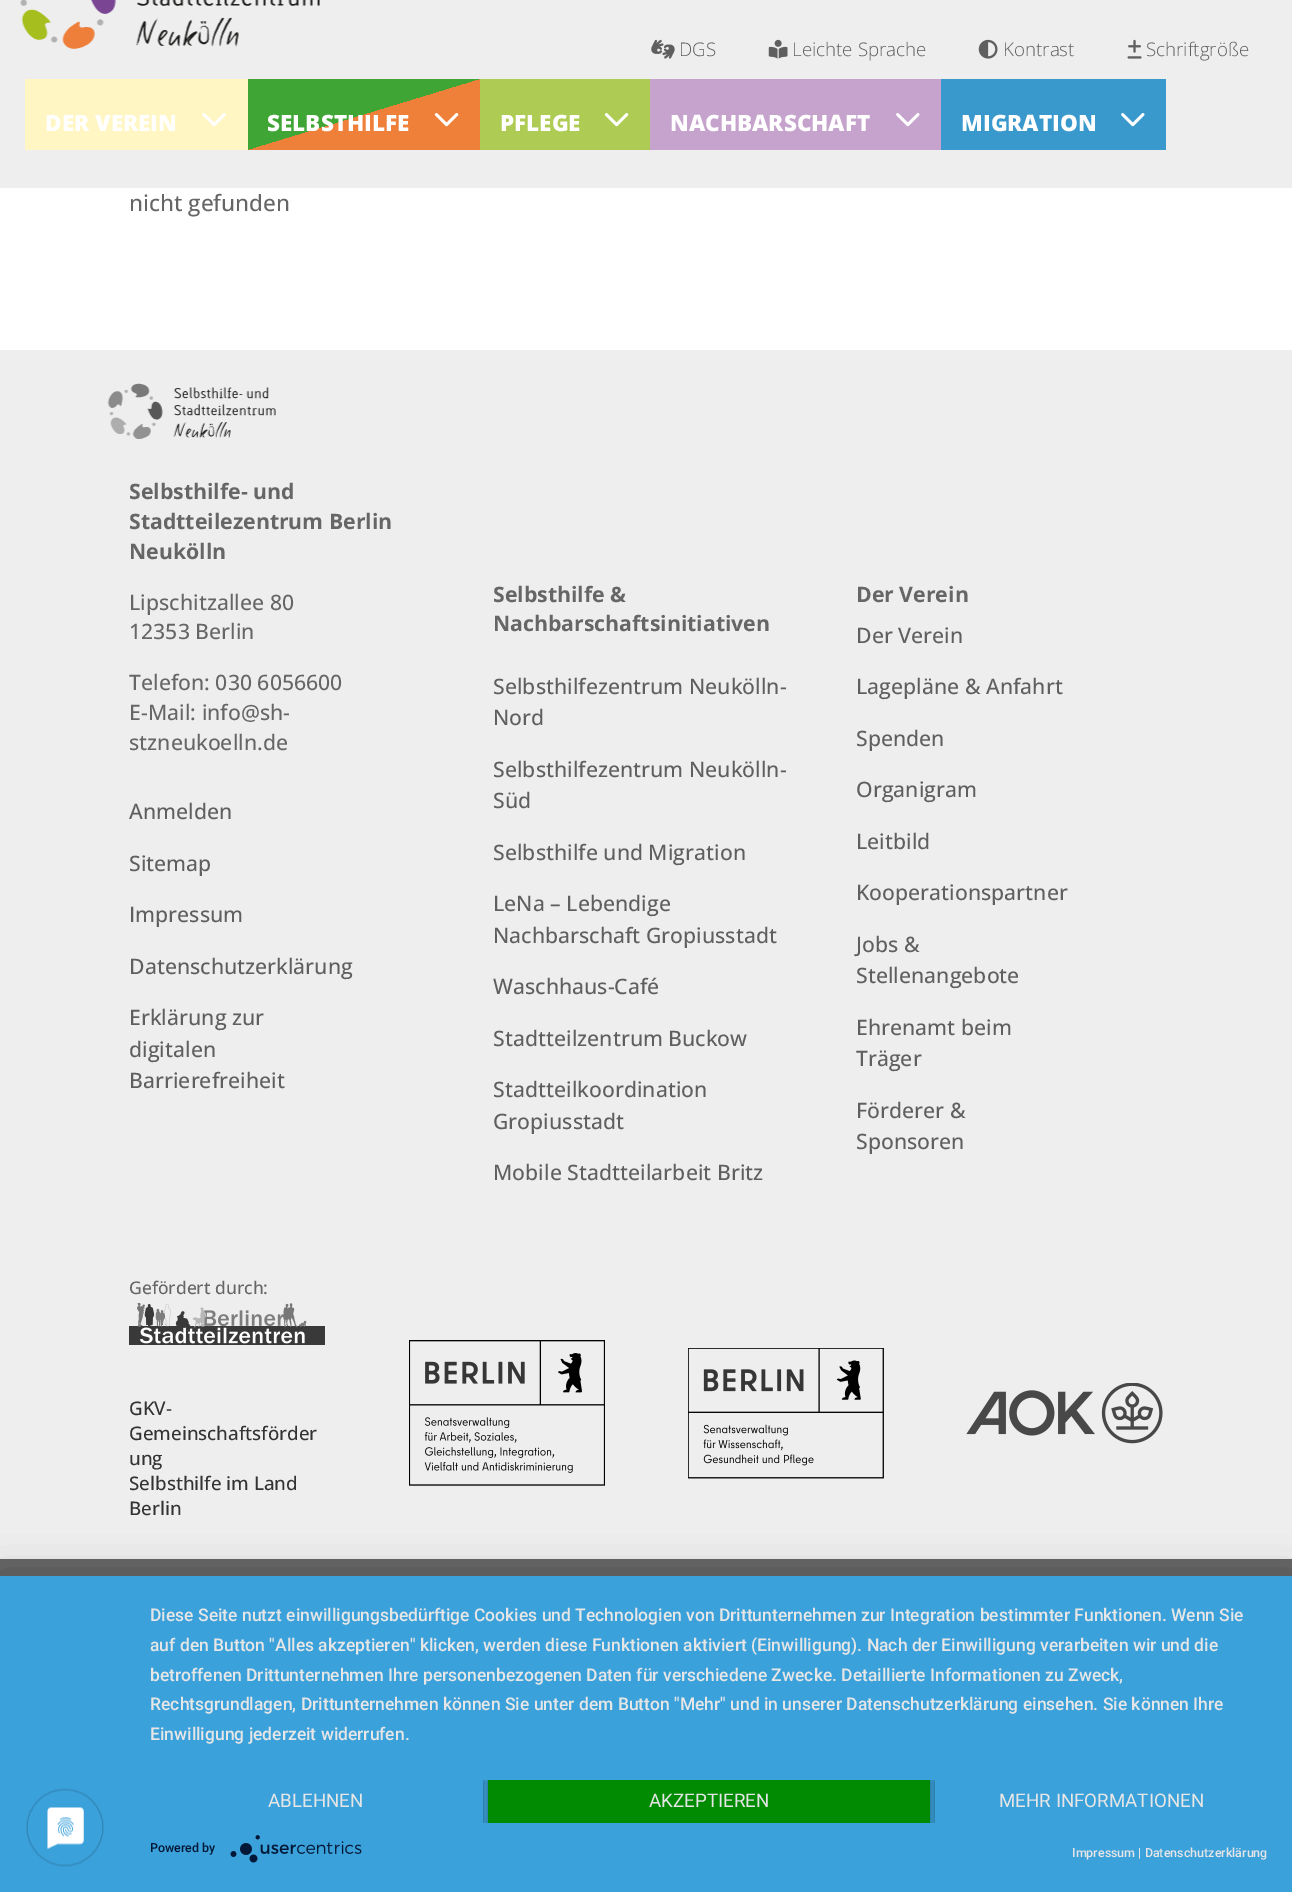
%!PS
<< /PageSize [1292 1892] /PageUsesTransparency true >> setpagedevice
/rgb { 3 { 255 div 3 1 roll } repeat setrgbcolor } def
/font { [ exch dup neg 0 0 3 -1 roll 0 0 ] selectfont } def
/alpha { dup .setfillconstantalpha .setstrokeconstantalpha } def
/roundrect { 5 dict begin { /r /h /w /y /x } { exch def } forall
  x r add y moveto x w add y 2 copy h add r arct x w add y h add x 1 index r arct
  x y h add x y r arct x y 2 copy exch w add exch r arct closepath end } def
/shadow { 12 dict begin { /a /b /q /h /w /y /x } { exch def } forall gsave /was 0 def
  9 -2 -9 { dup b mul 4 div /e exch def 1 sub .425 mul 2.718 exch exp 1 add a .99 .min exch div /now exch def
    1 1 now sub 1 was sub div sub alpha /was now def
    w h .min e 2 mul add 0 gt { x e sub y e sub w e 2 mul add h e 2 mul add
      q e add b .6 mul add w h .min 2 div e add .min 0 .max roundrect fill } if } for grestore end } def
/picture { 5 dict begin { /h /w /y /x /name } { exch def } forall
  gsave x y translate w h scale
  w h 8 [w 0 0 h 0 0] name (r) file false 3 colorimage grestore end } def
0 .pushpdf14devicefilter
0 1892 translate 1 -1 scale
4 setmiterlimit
255 255 255 rgb
0 0 1292 1892 rectfill
238 238 238 rgb
0 0 1292 188 rectfill
(img/1.rgb) 651 39 24 20 picture
(img/2.rgb) 768 39 20 20 picture
(img/3.rgb) 978 39 20 20 picture
(img/4.rgb) 1127 39 15 20 picture
(img/5.rgb) 20 0 300 49 picture
255 246 196 rgb
25 79 223 71 rectfill
(img/6.rgb) 202 113 24 14 picture
gsave 248 79 moveto 480 79 lineto 480 150 lineto 248 150 lineto closepath clip newpath
<< /ShadingType 2 /ColorSpace /DeviceRGB /Coords [344 49 384 180] /Extend [true true] /Function << /FunctionType 3 /Domain [0 1] /Functions [<< /FunctionType 2 /Domain [0 1] /C0 [0.247 0.647 0.208] /C1 [0.247 0.647 0.208] /N 1 >> << /FunctionType 2 /Domain [0 1] /C0 [0.937 0.502 0.227] /C1 [0.937 0.502 0.227] /N 1 >>] /Bounds [0.5] /Encode [0 1 0 1] >> >> shfill grestore
(img/7.rgb) 434 113 25 14 picture
174 204 83 rgb
480 79 170 71 rectfill
(img/8.rgb) 604 113 25 14 picture
197 163 205 rgb
650 79 291 71 rectfill
(img/9.rgb) 896 113 24 14 picture
57 152 204 rgb
941 79 225 71 rectfill
(img/10.rgb) 1121 113 24 14 picture
238 238 238 rgb
0 350 1292 1209 rectfill
(img/11.rgb) 107 383 169 56 picture
(img/12.rgb) 129 1303 196 42 picture
(img/13.rgb) 409 1340 196 146 picture
(img/14.rgb) 688 1348 196 131 picture
(img/15.rgb) 966 1383 197 61 picture
102 102 102 rgb
0 1559 1292 17 rectfill
0 0 0 rgb
0 1584 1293 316 0 22.5 0.3 shadow
59 161 219 rgb
0 1576 1292 316 rectfill
(img/16.rgb) 26 1788 78 79 picture
gsave
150 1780 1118 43 rectclip
0 0 0 rgb
150 1781 333 43 0 2.5 0.4 shadow
grestore
150 1780 333 43 rectfill
gsave
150 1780 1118 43 rectclip
0 0 0 rgb
488 1781 442 43 0 2.5 0.4 shadow
grestore
0 139 2 rgb
488 1780 442 43 rectfill
gsave
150 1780 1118 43 rectclip
0 0 0 rgb
935 1781 333 43 0 2.5 0.4 shadow
grestore
59 161 219 rgb
935 1780 333 43 rectfill
(img/17.rgb) 230 1835 132 28 picture
/OpenSans-Light 18.75 font
95 95 95 rgb
[
  [(DGS) 679 56]
  [(Leichte Sprache) 792 56]
  [(Kontrast) 1003 56]
  [(Schriftgröße) 1146 56]
] { aload pop moveto show } forall
/OpenSans-ExtraBold 22.5 font
255 255 255 rgb
[
  [(DER VEREIN) 45 131]
  [(SELBSTHILFE) 267 131]
  [(PFLEGE) 500 131]
  [(NACHBARSCHAFT) 670 131]
  [(MIGRATION) 961 131]
] { aload pop moveto show } forall
/OpenSans-Medium 22.5 font
102 102 102 rgb
129 211 moveto (nicht gefunden) show
/OpenSans-Bold 21.25 font
[
  [(Selbsthilfe- und) 129 499]
  [(Stadtteilezentrum Berlin) 129 529]
  [(Neukölln) 129 559]
] { aload pop moveto show } forall
/OpenSans-Medium 21.25 font
[
  [(Lipschitzallee 80) 129 610]
  [(12353 Berlin) 129 639]
  [(Telefon: 030 6056600) 129 690]
  [(E-Mail: info@sh-) 129 720]
  [(stzneukoelln.de) 129 750]
] { aload pop moveto show } forall
95 95 95 rgb
[
  [(Anmelden) 129 819]
  [(Sitemap) 129 871]
  [(Impressum) 129 922]
  [(Datenschutzerklärung) 129 974]
  [(Erklärung zur) 129 1025]
  [(digitalen) 129 1057]
  [(Barrierefreiheit) 129 1088]
] { aload pop moveto show } forall
/OpenSans-Bold 21.25 font
102 102 102 rgb
493 602 moveto (Selbsthilfe &) show
493 631 moveto (Nachbarschaftsinitiativen) show
/OpenSans-Medium 21.25 font
95 95 95 rgb
[
  [(Selbsthilfezentrum Neukölln-) 493 694]
  [(Nord) 493 725]
  [(Selbsthilfezentrum Neukölln-) 493 777]
  [(Süd) 493 808]
  [(Selbsthilfe und Migration) 493 860]
  [(LeNa – Lebendige) 493 911]
  [(Nachbarschaft Gropiusstadt) 493 943]
  [(Waschhaus-Café) 493 994]
  [(Stadtteilzentrum Buckow) 493 1046]
  [(Stadtteilkoordination) 493 1097]
  [(Gropiusstadt) 493 1129]
  [(Mobile Stadtteilarbeit Britz) 493 1180]
] { aload pop moveto show } forall
/OpenSans-Bold 21.25 font
102 102 102 rgb
856 602 moveto (Der Verein) show
/OpenSans-Medium 21.25 font
95 95 95 rgb
[
  [(Der Verein) 856 643]
  [(Lagepläne & Anfahrt) 856 694]
  [(Spenden) 856 746]
  [(Organigram) 856 797]
  [(Leitbild) 856 849]
  [(Kooperationspartner) 856 900]
  [(Jobs &) 856 952]
  [(Stellenangebote) 856 983]
  [(Ehrenamt beim) 856 1035]
  [(Träger) 856 1066]
  [(Förderer &) 856 1118]
  [(Sponsoren) 856 1149]
] { aload pop moveto show } forall
/OpenSans-Medium 17.5 font
102 102 102 rgb
129 1294 moveto (Gefördert durch:) show
/OpenSans-Medium 18.75 font
51 51 51 rgb
[
  [(GKV-) 129 1415]
  [(Gemeinschaftsförder) 129 1440]
  [(ung) 129 1465]
  [(Selbsthilfe im Land) 129 1490]
  [(Berlin) 129 1515]
] { aload pop moveto show } forall
/Roboto-Medium 17.5 font
230 230 230 rgb
[
  [(Diese Seite nutzt einwilligungsbedürftige Cookies und Technologien von Drittunternehmen zur Integration bestimmter Funktionen. Wenn Sie) 150 1621]
  [(auf den Button "Alles akzeptieren" klicken, werden diese Funktionen aktiviert \(Einwilligung\). Nach der Einwilligung verarbeiten wir und die) 150 1651]
  [(betroffenen Drittunternehmen Ihre personenbezogenen Daten für verschiedene Zwecke. Detaillierte Informationen zu Zweck,) 150 1681]
  [(Rechtsgrundlagen, Drittunternehmen können Sie unter dem Button "Mehr" und in unserer Datenschutzerklärung einsehen. Sie können Ihre) 150 1710]
  [(Einwilligung jederzeit widerrufen.) 150 1740]
] { aload pop moveto show } forall
/Roboto-Regular 18.75 font
[
  [(ABLEHNEN) 268 1807]
  [(AKZEPTIEREN) 649 1807]
  [(MEHR INFORMATIONEN) 999 1807]
] { aload pop moveto show } forall
/Roboto-Medium 12.5 font
2 24 54 rgb
150 1852 moveto (Powered by) show
230 230 230 rgb
1072 1857 moveto (Impressum | Datenschutzerklärung) show
.poppdf14devicefilter showpage
